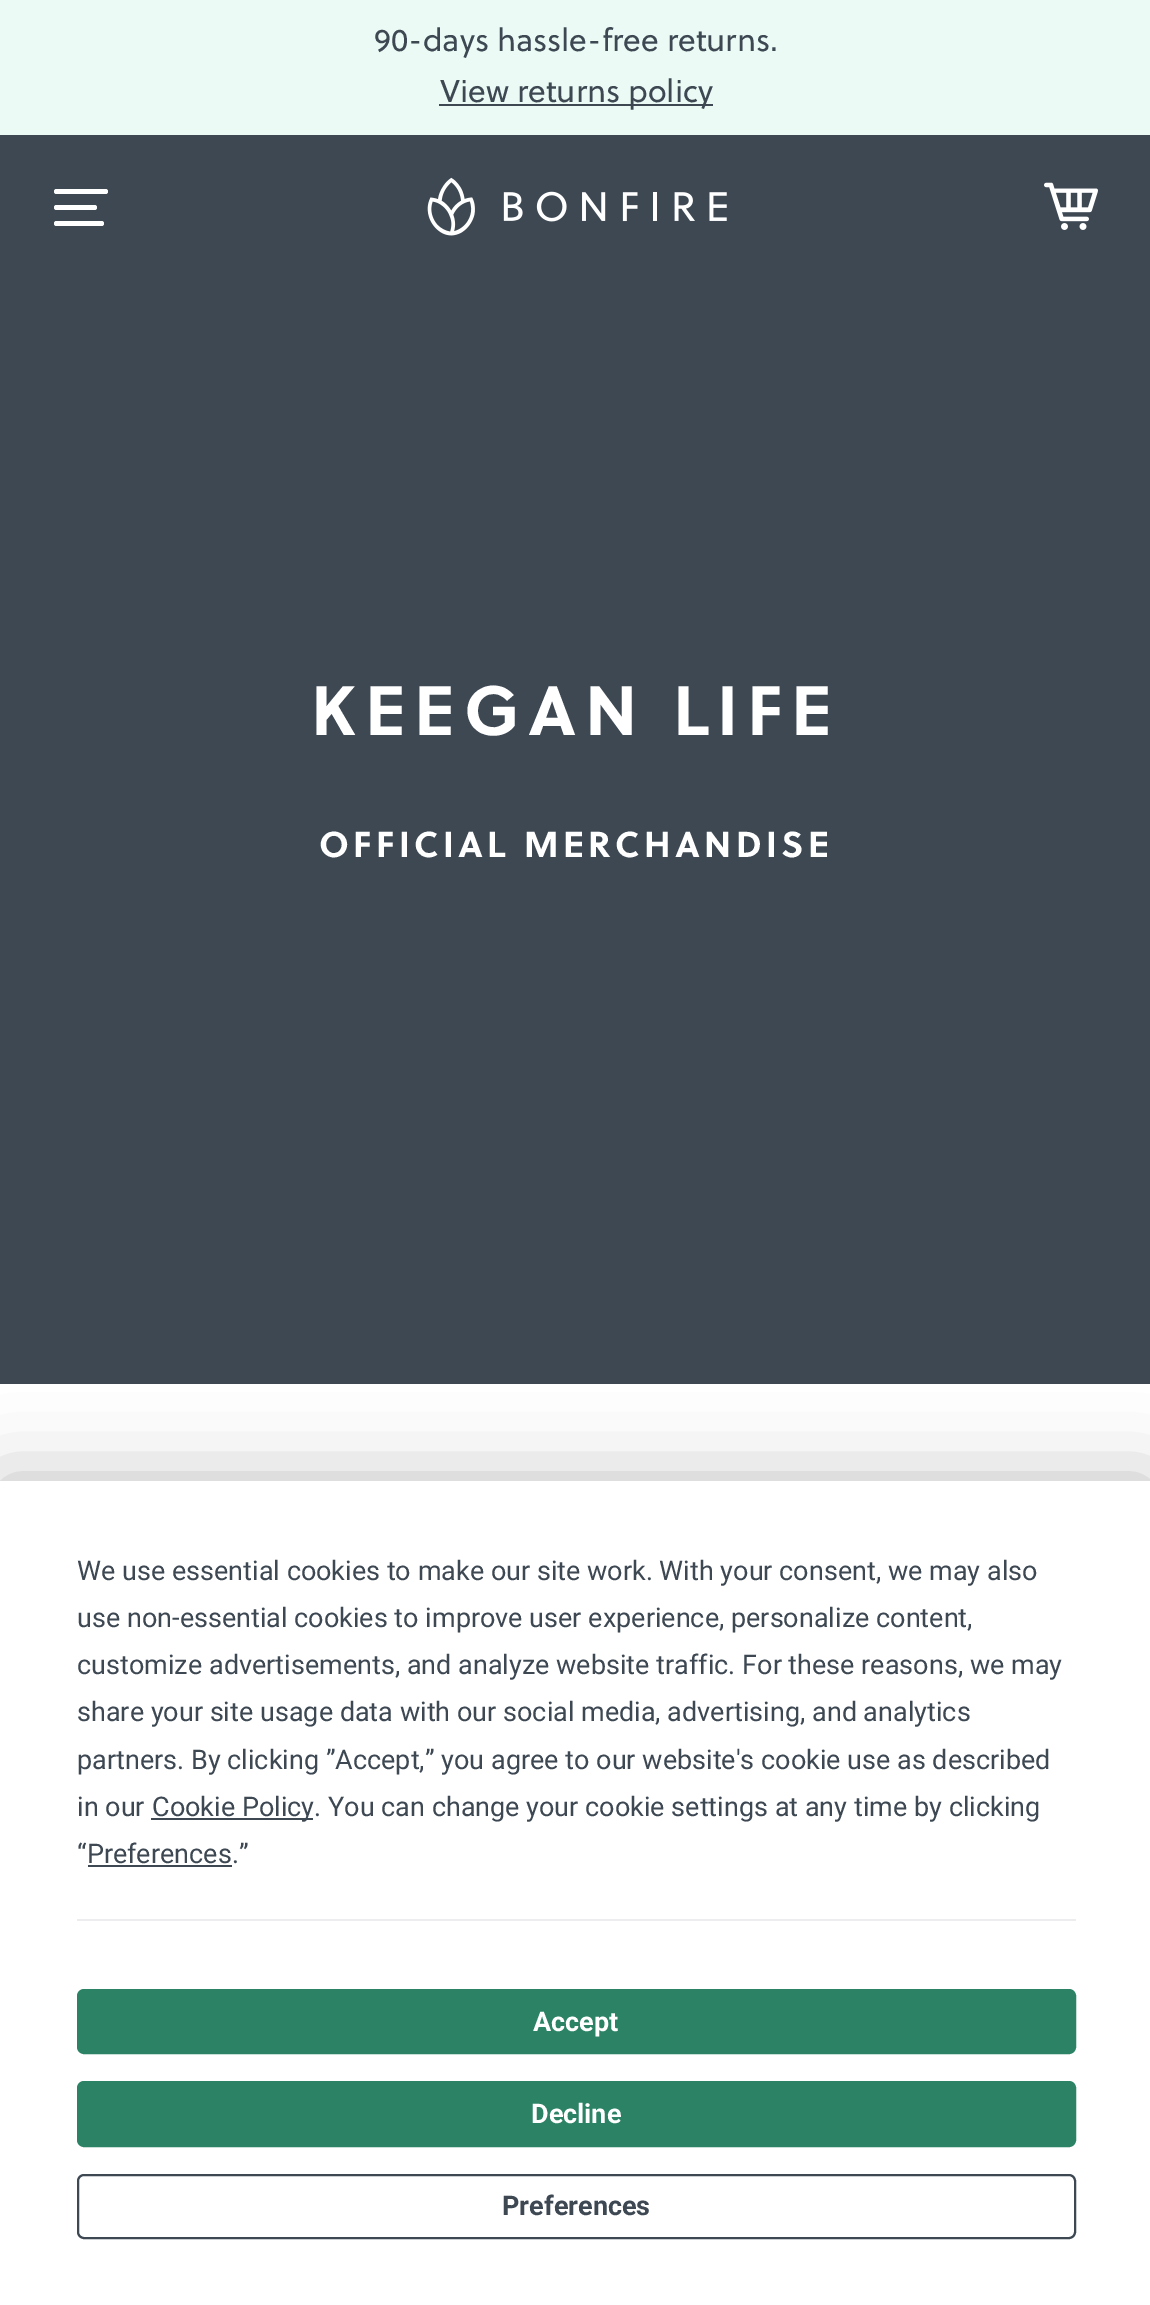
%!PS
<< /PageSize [1150 2305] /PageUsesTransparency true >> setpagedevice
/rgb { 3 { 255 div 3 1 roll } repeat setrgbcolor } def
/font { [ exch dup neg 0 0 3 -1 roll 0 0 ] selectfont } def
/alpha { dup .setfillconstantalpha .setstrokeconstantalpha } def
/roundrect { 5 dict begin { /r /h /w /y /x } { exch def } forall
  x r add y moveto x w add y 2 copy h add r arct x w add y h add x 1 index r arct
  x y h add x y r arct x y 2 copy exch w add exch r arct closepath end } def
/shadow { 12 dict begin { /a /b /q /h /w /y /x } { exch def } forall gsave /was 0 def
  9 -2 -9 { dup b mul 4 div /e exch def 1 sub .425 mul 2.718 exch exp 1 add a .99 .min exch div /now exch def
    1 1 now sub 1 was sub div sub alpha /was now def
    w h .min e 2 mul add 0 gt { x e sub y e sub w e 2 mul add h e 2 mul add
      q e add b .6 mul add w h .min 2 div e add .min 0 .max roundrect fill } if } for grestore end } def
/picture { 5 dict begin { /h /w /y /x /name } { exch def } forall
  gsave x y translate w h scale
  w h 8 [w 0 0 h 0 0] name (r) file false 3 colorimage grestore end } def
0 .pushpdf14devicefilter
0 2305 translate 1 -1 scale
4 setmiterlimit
255 255 255 rgb
0 0 1150 2305 rectfill
[
  [0 0 1150 135 235 250 244]
  [439 104 274 2 61 72 83]
  [0 135 1150 1249 61 72 83]
] { aload pop rgb rectfill } forall
255 255 255 rgb
54 189 54 5 2.5 roundrect fill
54 205 43 5 2.5 roundrect fill
54 221 50 5 2.5 roundrect fill
(img/1.rgb) 427 177 300 59 picture
(img/2.rgb) 1044 182 54 48 picture
0 0 0 rgb
0 1481 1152 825 0 39.5 0.25 shadow
[
  [0 1481 1150 824 255 255 255]
  [151 1818 162 2 61 72 83]
  [88 1865 144 2 61 72 83]
  [77 1919 999 2 237 237 239]
] { aload pop rgb rectfill } forall
43 130 101 rgb
78 1990 997 63 6 roundrect gsave fill grestore
2 setlinewidth
stroke
78 2082 997 64 6 roundrect gsave fill grestore
stroke
61 72 83 rgb
78 2175 997 63 6 roundrect stroke
/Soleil-Regular 31.5 font
374 51 moveto (90-days hassle-free returns.) show
440 102 moveto (View returns policy) show
/Soleil-Bold 69.75 font
255 255 255 rgb
311 735 moveto 9 0 (KEEGAN LIFE) ashow
/Soleil-Bold 36 font
319 857 moveto 4.5 0 (OFFICIAL MERCHANDISE) ashow
/Roboto-Regular 27 font
61 72 83 rgb
[
  [(We use essential cookies to make our site work. With your consent, we may also) 77 1580]
  [(use non-essential cookies to improve user experience, personalize content,) 77 1627]
  [(customize advertisements, and analyze website traffic. For these reasons, we may) 77 1674]
  [(share your site usage data with our social media, advertising, and analytics) 77 1721]
  [(partners. By clicking ”Accept,” you agree to our website's cookie use as described) 77 1769]
  [(in our) 77 1816]
  [(Cookie Policy. You can change your cookie settings at any time by clicking) 152 1816]
  [(“Preferences.”) 77 1863]
] { aload pop moveto show } forall
/Roboto-Bold 27 font
255 255 255 rgb
533 2031 moveto (Accept) show
531 2123 moveto (Decline) show
61 72 83 rgb
502 2215 moveto (Preferences) show
.poppdf14devicefilter showpage
